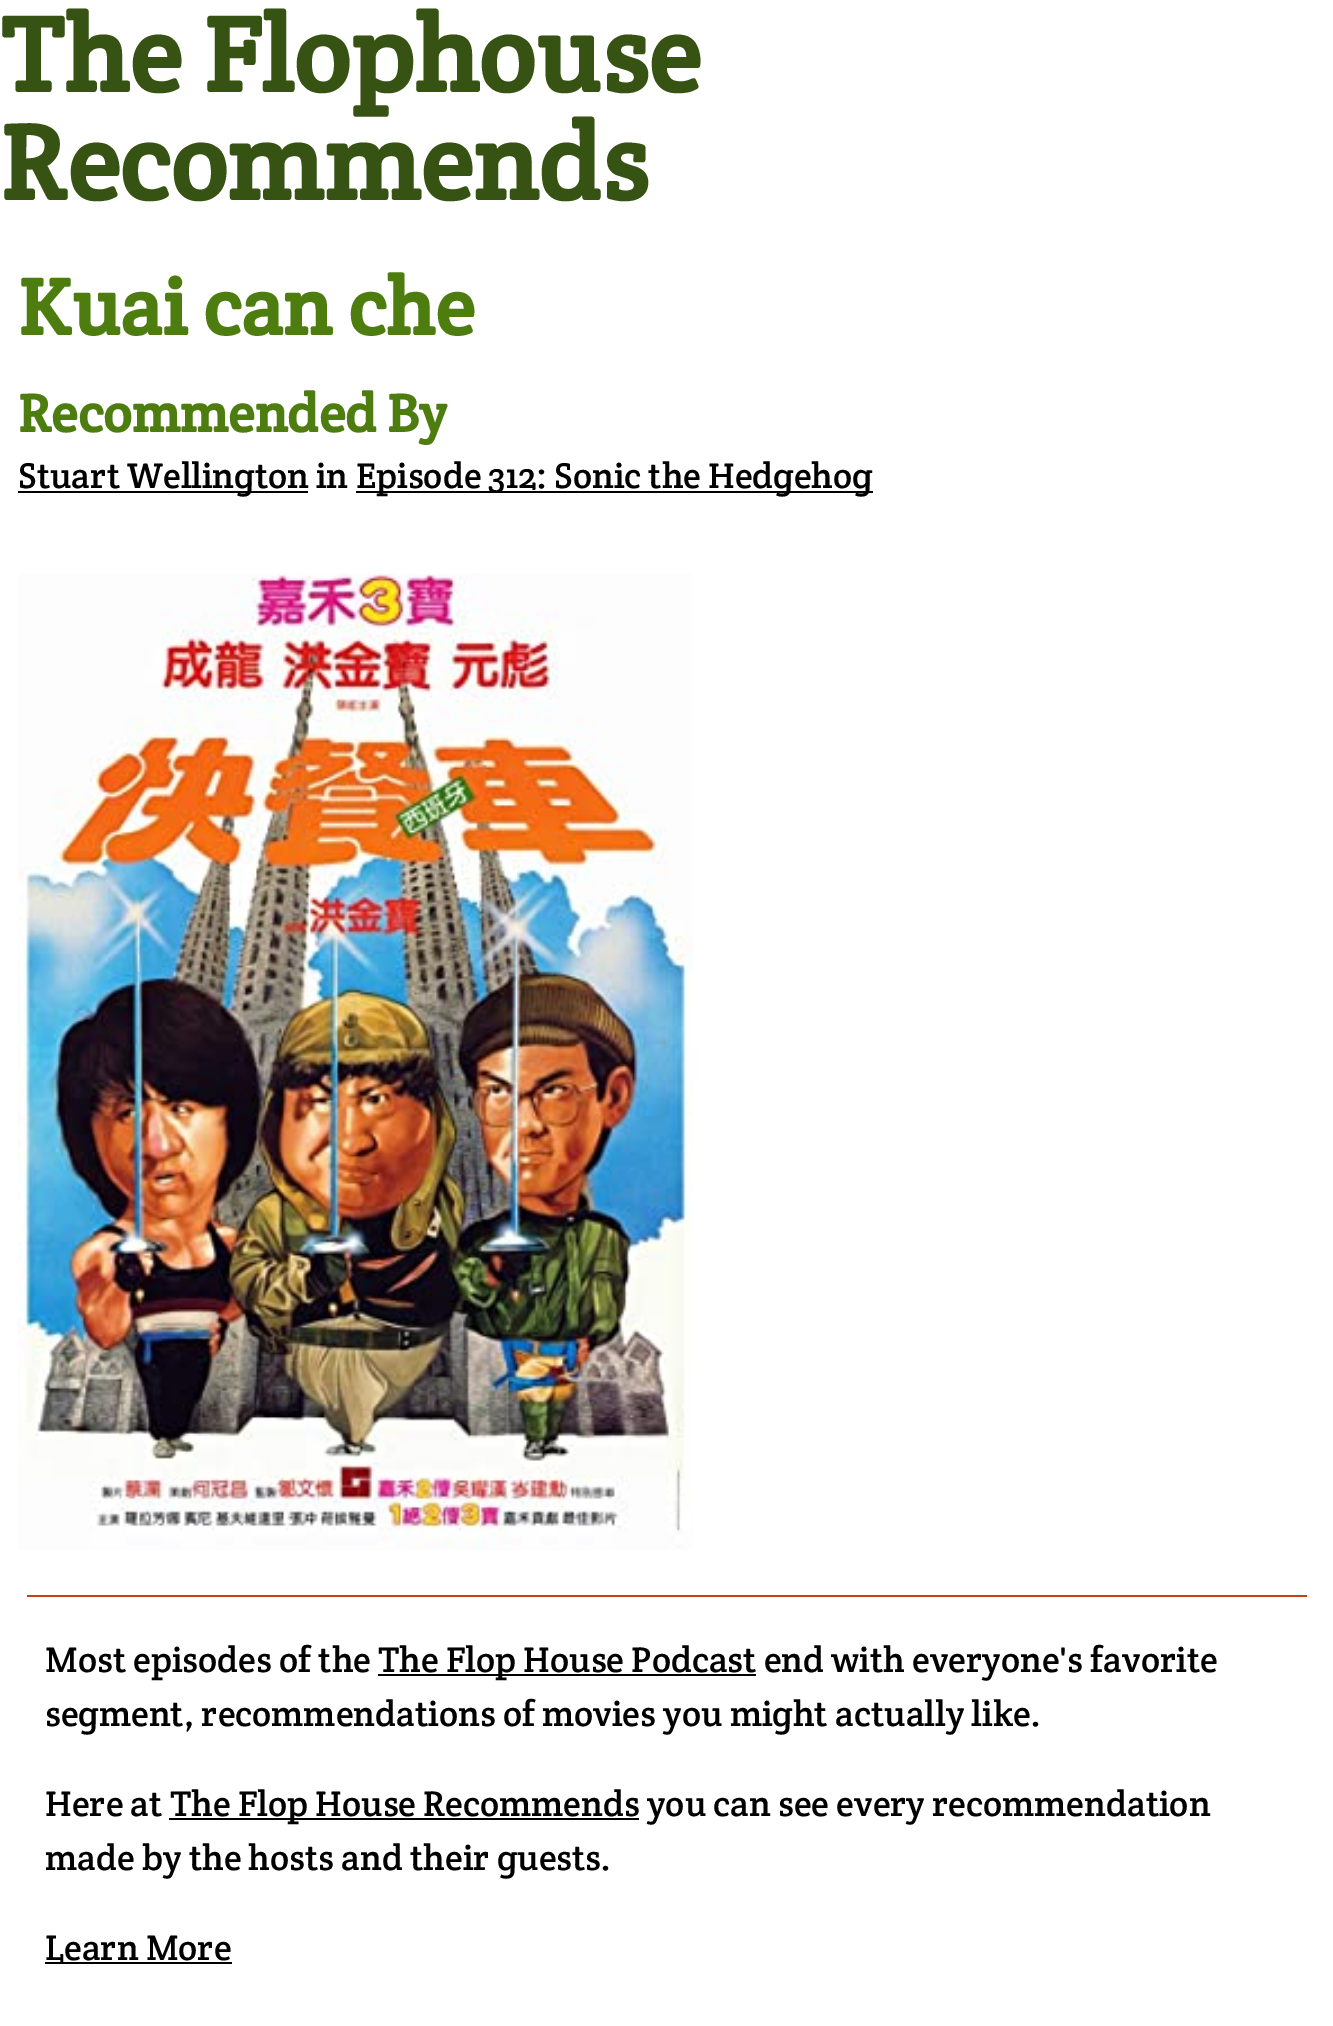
%!PS
<< /PageSize [1333 2026] >> setpagedevice
/rgb { 3 { 255 div 3 1 roll } repeat setrgbcolor } def
/font { [ exch dup neg 0 0 3 -1 roll 0 0 ] selectfont } def
/picture { 5 dict begin { /h /w /y /x /name } { exch def } forall
  gsave x y translate w h scale
  w h 8 [w 0 0 h 0 0] name (r) file false 3 colorimage grestore end } def
0 2026 translate 1 -1 scale
4 setmiterlimit
255 255 255 rgb
0 0 1333 2026 rectfill
0 0 0 rgb
18 491 290 2 rectfill
356 491 517 2 rectfill
(img/1.rgb) 18 573 675 977 picture
[
  [27 1595 1280 2 194 65 12]
  [378 1674 378 2 0 0 0]
  [169 1818 470 2 0 0 0]
  [45 1962 187 2 0 0 0]
] { aload pop rgb rectfill } forall
/CreteRound-Bold 108 font
54 83 20 rgb
0 92 moveto (The Flophouse) show
0 200 moveto (Recommends) show
/CreteRound-Bold 81 font
77 124 15 rgb
18 335 moveto (Kuai can che) show
/CreteRound-Bold 54 font
18 432 moveto (Recommended By) show
/CreteRound-Regular 36 font
0 0 0 rgb
[
  [(Stuart Wellington in) 18 488]
  [(Episode 312: Sonic the Hedgehog) 356 488]
  [(Most episodes of the) 45 1672]
  [(The Flop House Podcast end with everyone's favorite) 378 1672]
  [(segment, recommendations of movies you might actually like.) 45 1726]
  [(Here at) 45 1816]
  [(The Flop House Recommends you can see every recommendation) 170 1816]
  [(made by the hosts and their guests.) 45 1870]
  [(Learn More) 45 1960]
] { aload pop moveto show } forall
showpage
